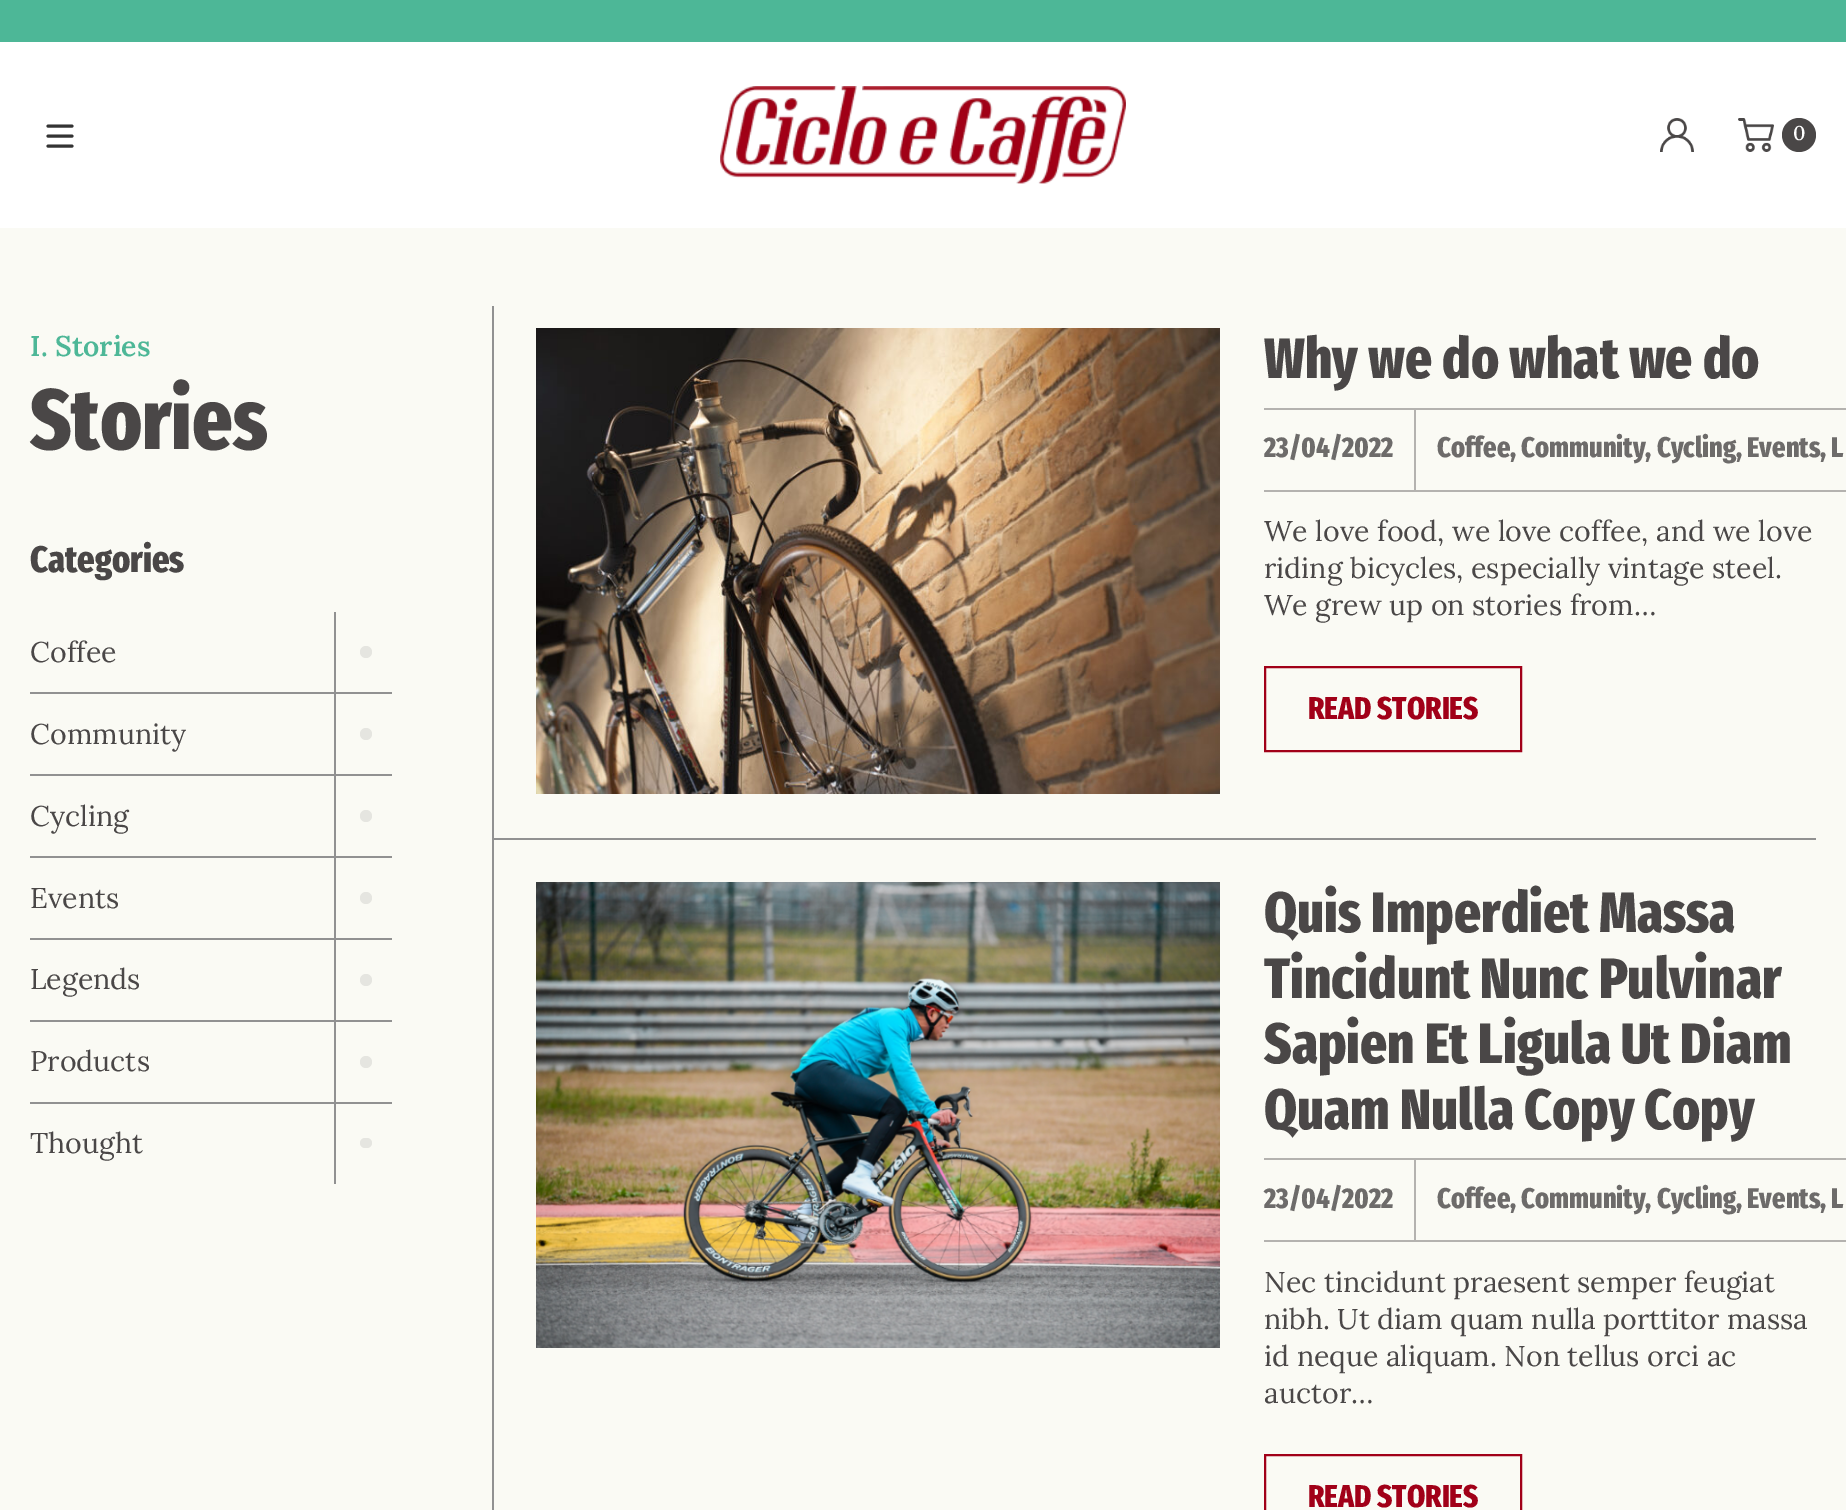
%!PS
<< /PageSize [1846 1510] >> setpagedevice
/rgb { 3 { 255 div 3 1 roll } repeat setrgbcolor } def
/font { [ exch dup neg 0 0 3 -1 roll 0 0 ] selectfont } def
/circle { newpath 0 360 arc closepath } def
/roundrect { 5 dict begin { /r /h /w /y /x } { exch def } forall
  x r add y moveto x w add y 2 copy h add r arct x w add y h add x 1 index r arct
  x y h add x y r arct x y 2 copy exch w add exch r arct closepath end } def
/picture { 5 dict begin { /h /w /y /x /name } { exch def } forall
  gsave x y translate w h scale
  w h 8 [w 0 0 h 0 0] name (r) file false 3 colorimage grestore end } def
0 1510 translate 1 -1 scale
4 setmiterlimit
255 255 255 rgb
0 0 1846 1510 rectfill
77 183 151 rgb
0 0 1846 42 rectfill
51 51 51 rgb
3 setlinewidth
1 setlinecap
48 126 moveto 72 126 lineto 48 136 moveto 72 136 lineto 72 146 moveto 48 146 lineto stroke
(img/1.rgb) 720 86 406 98 picture
(img/2.rgb) 1660 118 34 34 picture
(img/3.rgb) 1738 118 36 34 picture
74 71 71 rgb
1799 135 17 circle fill
250 250 244 rgb
0 228 1846 1282 rectfill
145 145 145 rgb
30 692 362 2 rectfill
229 229 224 rgb
366 652 6 circle fill
[
  [30 774 362 2 145 145 145]
  [30 856 362 2 145 145 145]
  [30 938 362 2 145 145 145]
  [30 1020 362 2 145 145 145]
  [30 1102 362 2 145 145 145]
  [334 612 2 572 145 145 145]
] { aload pop rgb rectfill } forall
229 229 224 rgb
366 734 6 circle fill
366 816 6 circle fill
366 898 6 circle fill
366 980 6 circle fill
366 1062 6 circle fill
360 1138 12 10 5 roundrect fill
145 145 145 rgb
492 306 2 1204 rectfill
494 838 1322 2 rectfill
(img/4.rgb) 536 328 684 466 picture
[
  [1264 408 582 2 180 178 175]
  [1264 490 582 2 180 178 175]
  [1414 410 2 80 180 178 175]
] { aload pop rgb rectfill } forall
161 0 24 rgb
2 setlinewidth
0 setlinecap
1265 667 256 84 rectstroke
(img/5.rgb) 536 882 684 466 picture
[
  [1264 1158 582 2 180 178 175]
  [1264 1240 582 2 180 178 175]
  [1414 1160 2 80 180 178 175]
] { aload pop rgb rectfill } forall
161 0 24 rgb
1265 1455 256 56 rectstroke
/Lora-Medium 20 font
255 255 255 rgb
1793 140 moveto (0) show
/Lora-SemiBold 28.5 font
77 183 151 rgb
30 356 moveto (I. Stories) show
/FiraSansExtraCondensed-ExtraBold 85.5 font
74 71 71 rgb
30 449 moveto (Stories) show
/FiraSansExtraCondensed-ExtraBold 37 font
30 572 moveto (Categories) show
/Lora-Regular 28.5 font
[
  [(Coffee) 30 662]
  [(Community) 30 744]
  [(Cycling) 30 826]
  [(Events) 30 908]
  [(Legends) 30 989]
  [(Products) 30 1071]
  [(Thought) 30 1153]
] { aload pop moveto show } forall
/FiraSansExtraCondensed-ExtraBold 57 font
1264 378 moveto (Why we do what we do) show
/FiraSansExtraCondensed-ExtraBold 28.5 font
109 107 106 rgb
1264 457 moveto (23/04/2022) show
1437 457 moveto (Coffee, Community, Cycling, Events, L) show
/Lora-Regular 28.5 font
74 71 71 rgb
[
  [(We love food, we love coffee, and we love) 1264 541]
  [(riding bicycles, especially vintage steel.) 1264 578]
  [(We grew up on stories from…) 1264 615]
] { aload pop moveto show } forall
/FiraSansExtraCondensed-ExtraBold 31.5 font
161 0 24 rgb
1308 719 moveto (READ STORIES) show
/FiraSansExtraCondensed-ExtraBold 57 font
74 71 71 rgb
[
  [(Quis Imperdiet Massa) 1264 932]
  [(Tincidunt Nunc Pulvinar) 1264 998]
  [(Sapien Et Ligula Ut Diam) 1264 1063]
  [(Quam Nulla Copy Copy) 1264 1129]
] { aload pop moveto show } forall
/FiraSansExtraCondensed-ExtraBold 28.5 font
109 107 106 rgb
1264 1208 moveto (23/04/2022) show
1437 1208 moveto (Coffee, Community, Cycling, Events, L) show
/Lora-Regular 28.5 font
74 71 71 rgb
[
  [(Nec tincidunt praesent semper feugiat) 1264 1292]
  [(nibh. Ut diam quam nulla porttitor massa) 1264 1329]
  [(id neque aliquam. Non tellus orci ac) 1264 1366]
  [(auctor…) 1264 1403]
] { aload pop moveto show } forall
/FiraSansExtraCondensed-ExtraBold 31.5 font
161 0 24 rgb
1308 1507 moveto (READ STORIES) show
showpage
